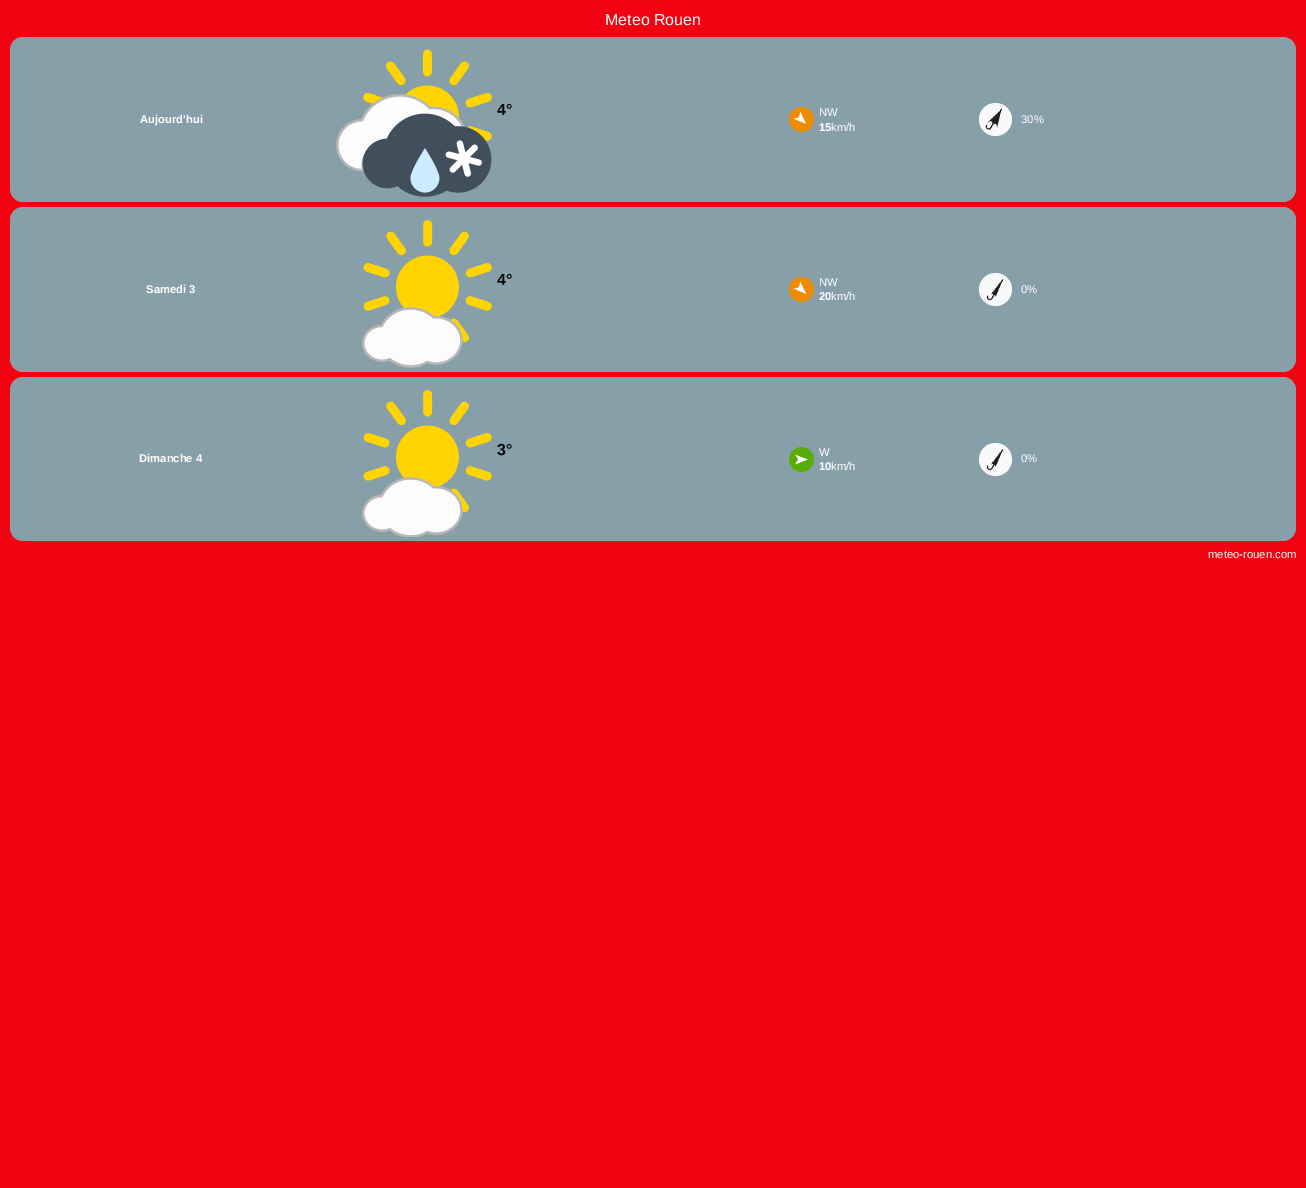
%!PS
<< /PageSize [1306 1188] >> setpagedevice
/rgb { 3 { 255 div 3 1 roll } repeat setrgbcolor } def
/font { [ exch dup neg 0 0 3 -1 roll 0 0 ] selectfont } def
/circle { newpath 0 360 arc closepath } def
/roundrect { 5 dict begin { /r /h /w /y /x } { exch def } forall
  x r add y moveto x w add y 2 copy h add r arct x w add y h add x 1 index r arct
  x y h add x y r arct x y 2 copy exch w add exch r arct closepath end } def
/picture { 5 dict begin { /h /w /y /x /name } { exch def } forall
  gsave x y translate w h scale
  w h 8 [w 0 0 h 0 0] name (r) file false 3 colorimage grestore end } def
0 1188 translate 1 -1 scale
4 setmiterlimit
242 2 16 rgb
0 0 1306 1188 rectfill
135 159 169 rgb
10 37 1286 165 13 roundrect fill
(img/1.rgb) 336 49 156 148 picture
(img/2.rgb) 788 106 27 27 picture
248 249 250 rgb
995.5 119.5 16.5 circle fill
(img/3.rgb) 985 108 17 22 picture
135 159 169 rgb
10 207 1286 165 13 roundrect fill
(img/4.rgb) 362 220 130 148 picture
(img/2.rgb) 788 276 27 27 picture
248 249 250 rgb
995.5 289.5 16.5 circle fill
(img/5.rgb) 986 279 18 22 picture
135 159 169 rgb
10 377 1286 164 13 roundrect fill
(img/6.rgb) 362 390 130 147 picture
(img/7.rgb) 789 447 25 25 picture
248 249 250 rgb
995.5 459.5 16.5 circle fill
(img/5.rgb) 986 449 18 22 picture
/LiberationSans-Regular 16 font
255 255 255 rgb
605 25 moveto (Meteo Rouen) show
/LiberationSans-Bold 11.25 font
140 123 moveto (Aujourd'hui) show
/LiberationSans-Bold 16 font
10 9 9 rgb
497 115 moveto (4°) show
/LiberationSans-Regular 11.25 font
255 255 255 rgb
819 116 moveto (NW) show
/LiberationSans-Bold 11.25 font
819 131 moveto (15) show
/LiberationSans-Regular 11.25 font
831 131 moveto (km/h) show
1021 123 moveto (30%) show
/LiberationSans-Bold 11.25 font
146 293 moveto (Samedi 3) show
/LiberationSans-Bold 16 font
10 9 9 rgb
497 285 moveto (4°) show
/LiberationSans-Regular 11.25 font
255 255 255 rgb
819 286 moveto (NW) show
/LiberationSans-Bold 11.25 font
819 300 moveto (20) show
/LiberationSans-Regular 11.25 font
831 300 moveto (km/h) show
1021 293 moveto (0%) show
/LiberationSans-Bold 11.25 font
139 462 moveto (Dimanche 4) show
/LiberationSans-Bold 16 font
10 9 9 rgb
497 455 moveto (3°) show
/LiberationSans-Regular 11.25 font
255 255 255 rgb
819 456 moveto (W) show
/LiberationSans-Bold 11.25 font
819 470 moveto (10) show
/LiberationSans-Regular 11.25 font
[
  [(km/h) 831 470]
  [(0%) 1021 462]
  [(meteo-rouen.com) 1208 558]
] { aload pop moveto show } forall
showpage
